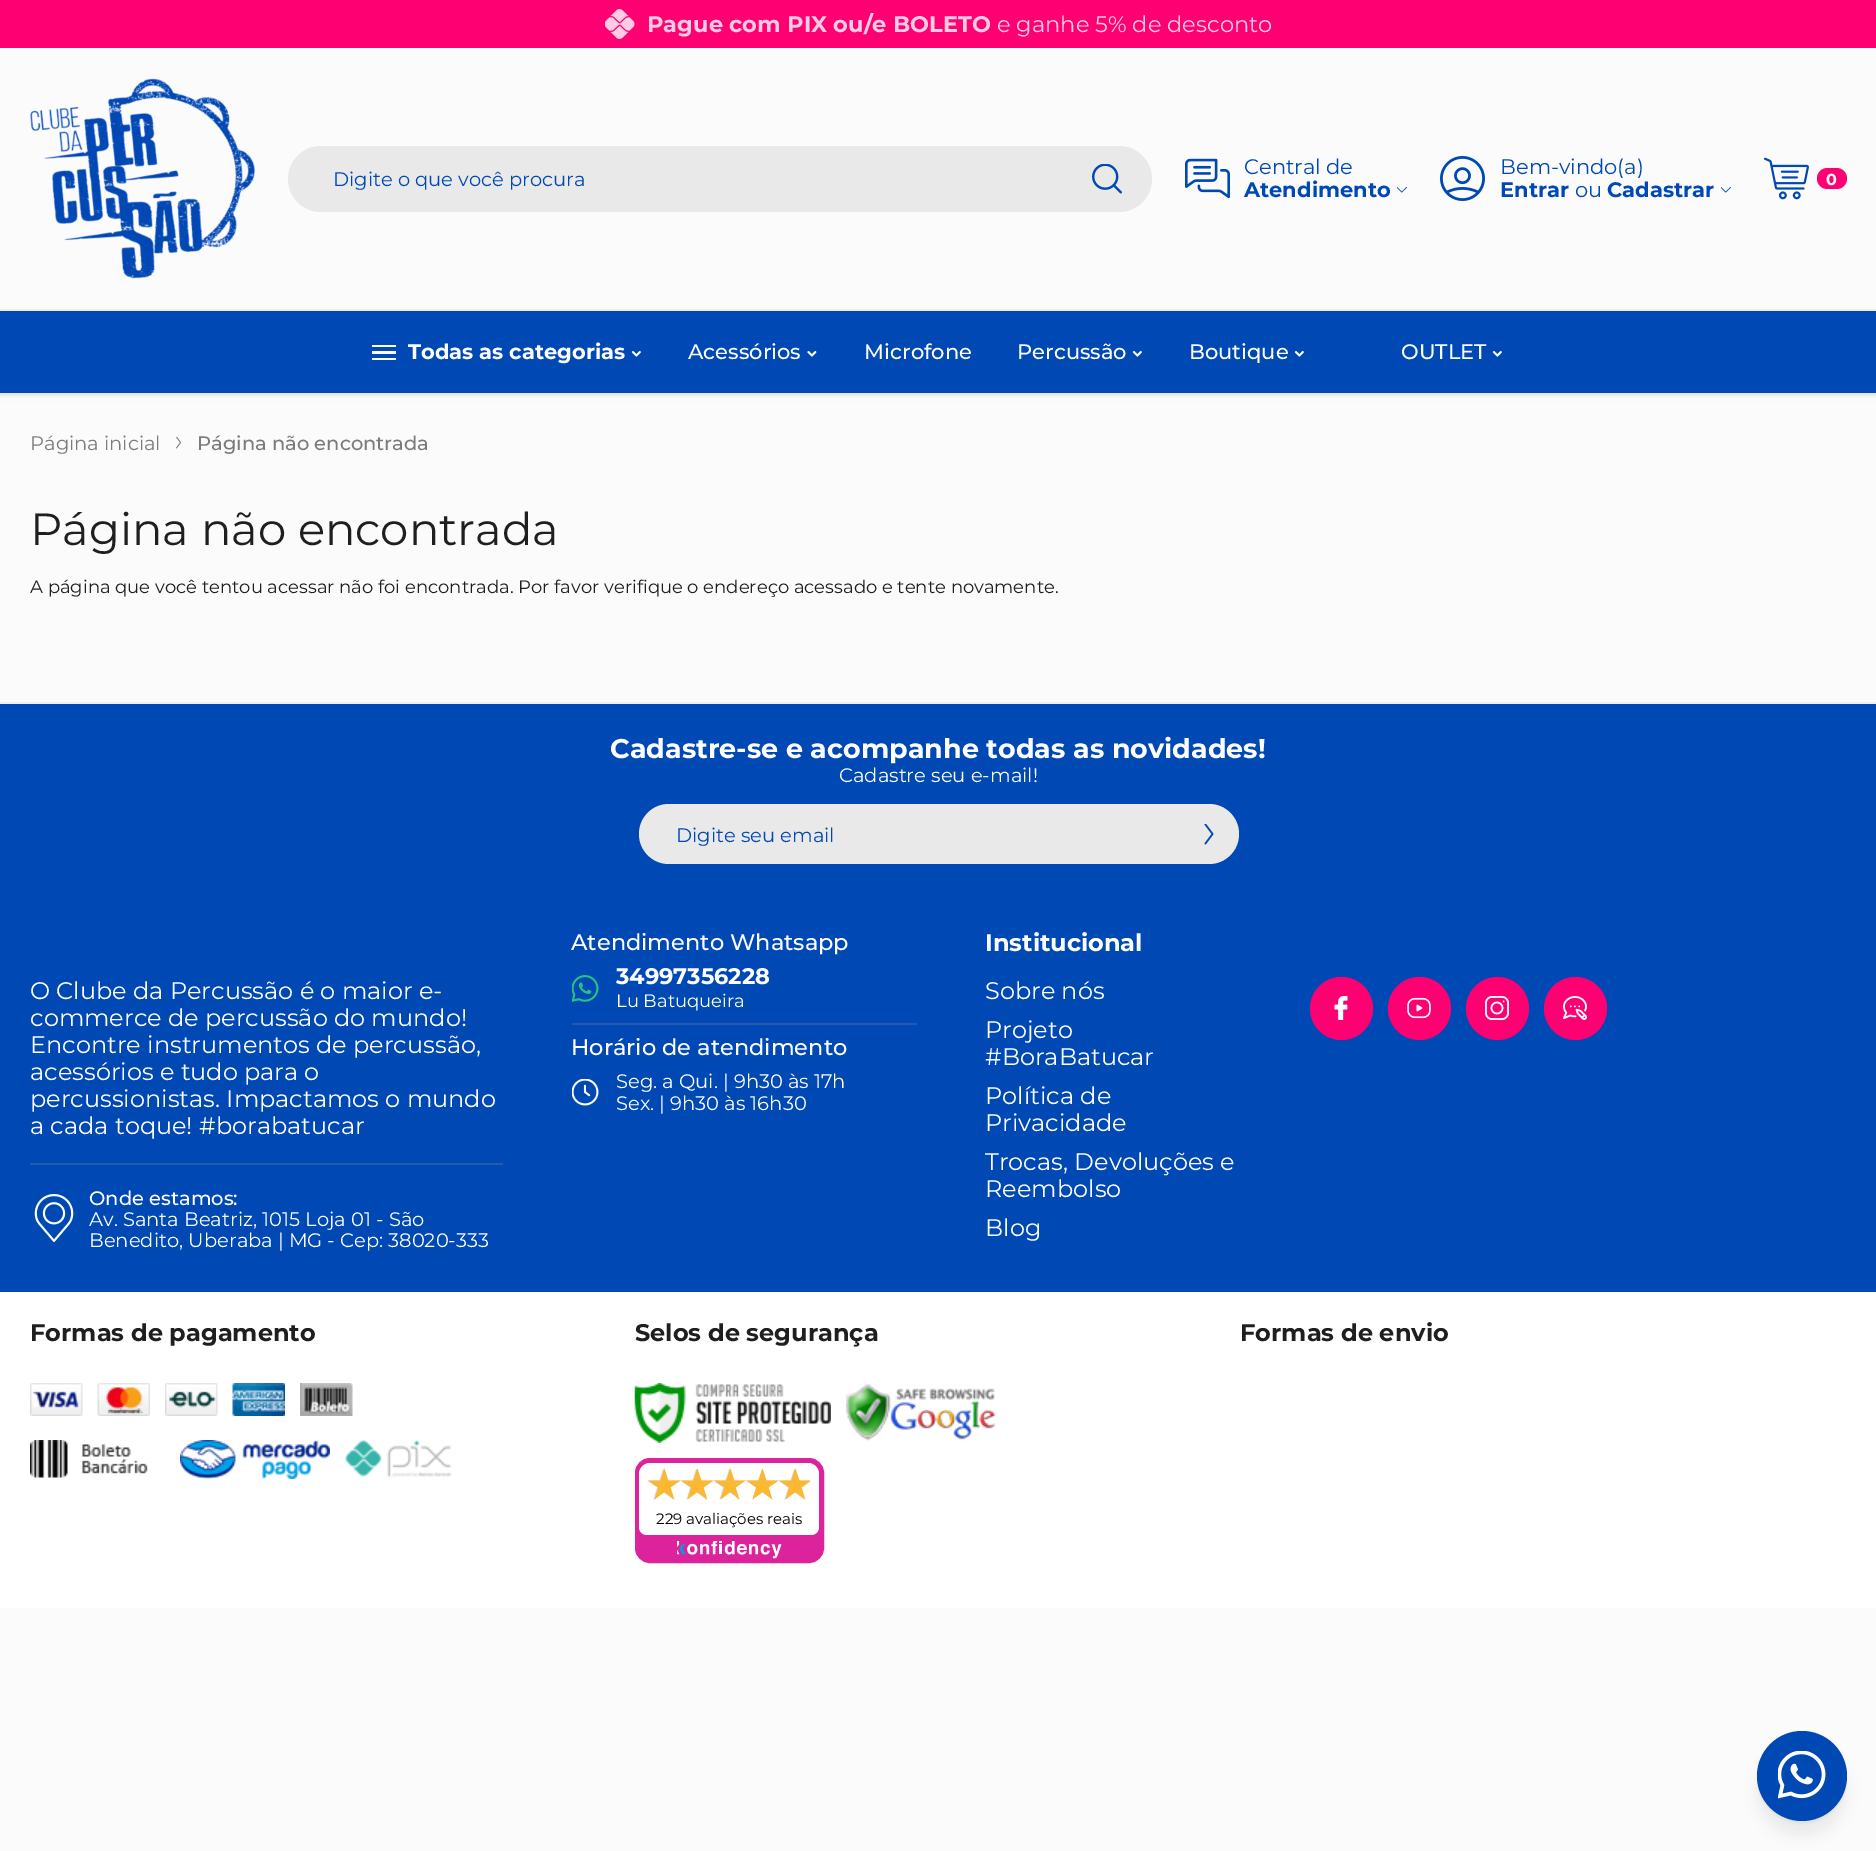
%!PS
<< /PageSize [1876 1851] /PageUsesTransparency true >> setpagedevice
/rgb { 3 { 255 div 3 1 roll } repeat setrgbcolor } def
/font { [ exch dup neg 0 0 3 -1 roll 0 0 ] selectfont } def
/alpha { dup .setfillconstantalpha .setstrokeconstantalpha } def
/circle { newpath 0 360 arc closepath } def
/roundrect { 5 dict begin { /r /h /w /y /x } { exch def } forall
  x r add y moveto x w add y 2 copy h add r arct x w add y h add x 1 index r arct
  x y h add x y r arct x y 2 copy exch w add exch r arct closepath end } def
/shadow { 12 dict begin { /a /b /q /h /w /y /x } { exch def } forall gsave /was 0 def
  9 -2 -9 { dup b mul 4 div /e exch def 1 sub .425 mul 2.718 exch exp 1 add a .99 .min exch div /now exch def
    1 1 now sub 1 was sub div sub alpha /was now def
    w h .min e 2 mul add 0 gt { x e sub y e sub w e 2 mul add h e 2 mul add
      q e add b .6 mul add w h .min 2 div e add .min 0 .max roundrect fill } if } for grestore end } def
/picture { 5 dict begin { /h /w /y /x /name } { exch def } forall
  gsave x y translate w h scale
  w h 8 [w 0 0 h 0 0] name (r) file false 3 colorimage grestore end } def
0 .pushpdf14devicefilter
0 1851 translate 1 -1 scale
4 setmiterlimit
251 251 251 rgb
0 0 1876 1851 rectfill
255 0 115 rgb
0 0 1876 48 rectfill
(img/1.rgb) 605 9 30 30 picture
82 82 82 rgb
0 312 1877 83 0 3 0.2 shadow
251 251 251 rgb
1 308 1875 1 rectfill
237 237 237 rgb
0 309 1876 2 rectfill
(img/2.rgb) 30 78 225 201 picture
233 233 233 rgb
288 146 864 66 33 roundrect fill
(img/3.rgb) 1092 164 30 30 picture
(img/4.rgb) 1185 158 45 41 picture
(img/5.rgb) 1397 187 10 6 picture
(img/6.rgb) 1440 156 45 45 picture
(img/5.rgb) 1721 187 10 6 picture
(img/7.rgb) 1764 157 45 43 picture
255 0 115 rgb
1817 168 30 21 10.5 roundrect fill
[
  [0 311 1876 82 0 72 180]
  [372 358 24 2 255 255 255]
  [372 351 24 3 255 255 255]
  [372 345 24 2 255 255 255]
] { aload pop rgb rectfill } forall
(img/8.rgb) 631 351 10 6 picture
(img/9.rgb) 807 351 10 6 picture
(img/8.rgb) 1132 351 10 6 picture
(img/8.rgb) 1294 351 10 6 picture
(img/8.rgb) 1492 351 10 6 picture
(img/10.rgb) 176 437 5 12 picture
239 239 239 rgb
0 702 1876 2 rectfill
0 72 180 rgb
0 704 1876 588 rectfill
233 233 233 rgb
639 804 600 60 30 roundrect fill
(img/11.rgb) 1204 824 10 21 picture
37 91 171 rgb
30 1163 473 2 rectfill
(img/12.rgb) 34 1194 40 48 picture
572 1023 345 2 rectfill
(img/13.rgb) 572 975 27 27 picture
(img/14.rgb) 572 1079 27 27 picture
255 0 115 rgb
1341.5 1008.5 31.5 circle fill
(img/15.rgb) 1334 996 14 24 picture
1419.5 1008.5 31.5 circle fill
(img/16.rgb) 1407 997 24 22 picture
1497.5 1008.5 31.5 circle fill
(img/17.rgb) 1485 996 24 24 picture
1575.5 1008.5 31.5 circle fill
(img/18.rgb) 1563 996 24 24 picture
255 255 255 rgb
0 1292 1876 316 rectfill
(img/19.rgb) 30 1383 53 33 picture
(img/20.rgb) 97 1383 53 33 picture
(img/21.rgb) 165 1383 53 33 picture
(img/22.rgb) 232 1383 53 33 picture
(img/23.rgb) 300 1383 53 33 picture
(img/24.rgb) 30 1440 118 38 picture
(img/25.rgb) 180 1440 150 39 picture
(img/26.rgb) 345 1440 107 38 picture
(img/27.rgb) 634 1383 197 60 picture
(img/28.rgb) 846 1384 150 57 picture
220 35 155 rgb
637.5 1460.5 184 100 12.5 roundrect gsave fill grestore
5 setlinewidth
stroke
255 255 255 rgb
650 1463 moveto 808 1463 lineto 814 1463 819 1468 819 1474 curveto 819 1527 lineto 819 1531.5 815.5 1535 811 1535 curveto 647 1535 lineto 642.5 1535 639 1531.5 639 1527 curveto 639 1474 lineto 639 1468 644 1463 650 1463 curveto closepath fill
(img/29.rgb) 647 1468 164 32 picture
(img/30.rgb) 648 1468 162 32 picture
(img/31.rgb) 677 1541 105 18 picture
103 103 103 rgb
1757 1746 90 90 45 6 0.1 shadow
0 0 0 rgb
1757 1734 90 90 45 1 0.04 shadow
0 72 180 rgb
1802 1776 45 circle fill
(img/32.rgb) 1778 1751 48 48 picture
/Montserrat-Bold 22.5 font
255 204 227 rgb
647 32 moveto (Pague com PIX ou/e BOLETO) show
/Montserrat-Regular 22.5 font
997 32 moveto (e ganhe 5% de desconto) show
/Montserrat-Regular 19.5 font
0 72 180 rgb
333 186 moveto (Digite o que você procura) show
/Montserrat-Regular 21 font
1244 174 moveto (Central de) show
/Montserrat-Bold 21 font
1244 197 moveto (Atendimento) show
/Montserrat-Regular 21 font
1500 174 moveto (Bem-vindo\(a\)) show
/Montserrat-Bold 21 font
1500 197 moveto (Entrar) show
/Montserrat-Regular 21 font
1575 197 moveto (ou) show
/Montserrat-Bold 21 font
1607 197 moveto (Cadastrar) show
/Montserrat-Bold 16 font
255 255 255 rgb
1826 185 moveto (0) show
/Montserrat-Bold 21 font
408 359 moveto (Todas as categorias) show
/Montserrat-Medium 21 font
[
  [(Acessórios) 688 359]
  [(Microfone) 864 359]
  [(Percussão) 1017 359]
  [(Boutique) 1189 359]
  [(OUTLET) 1401 359]
] { aload pop moveto show } forall
/Montserrat-Regular 19.5 font
123 123 123 rgb
30 450 moveto (Página inicial) show
/Montserrat-Medium 19.5 font
197 450 moveto (Página não encontrada) show
/Montserrat-Regular 45 font
32 31 31 rgb
30 545 moveto (Página não encontrada) show
/Montserrat-Regular 18 font
30 593 moveto (A página que você tentou acessar não foi encontrada. Por favor verifique o endereço acessado e tente novamente.) show
/Montserrat-Bold 27 font
255 255 255 rgb
610 758 moveto (Cadastre-se e acompanhe todas as novidades!) show
/Montserrat-Regular 19.5 font
839 782 moveto (Cadastre seu e-mail!) show
0 72 180 rgb
676 842 moveto (Digite seu email) show
/Montserrat-Regular 24 font
255 255 255 rgb
[
  [(O Clube da Percussão é o maior e-) 30 999]
  [(commerce de percussão do mundo!) 30 1026]
  [(Encontre instrumentos de percussão,) 30 1053]
  [(acessórios e tudo para o) 30 1080]
  [(percussionistas. Impactamos o mundo) 30 1107]
  [(a cada toque! #borabatucar) 30 1134]
] { aload pop moveto show } forall
/Montserrat-Medium 19.5 font
89 1205 moveto (Onde estamos:) show
/Montserrat-Regular 19.5 font
89 1226 moveto (Av. Santa Beatriz, 1015 Loja 01 - São) show
89 1247 moveto (Benedito, Uberaba | MG - Cep: 38020-333) show
/Montserrat-Medium 22.5 font
571 950 moveto (Atendimento Whatsapp) show
/Montserrat-Bold 22.5 font
616 984 moveto (34997356228) show
/Montserrat-Regular 18 font
616 1007 moveto (Lu Batuqueira) show
/Montserrat-Medium 22.5 font
571 1055 moveto (Horário de atendimento) show
/Montserrat-Regular 19.5 font
616 1088 moveto (Seg. a Qui. | 9h30 às 17h) show
616 1110 moveto (Sex. | 9h30 às 16h30) show
/Montserrat-Bold 24 font
985 951 moveto (Institucional) show
/Montserrat-Regular 24 font
[
  [(Sobre nós) 985 999]
  [(Projeto) 985 1038]
  [(#BoraBatucar) 985 1065]
  [(Política de) 985 1104]
  [(Privacidade) 985 1131]
  [(Trocas, Devoluções e) 985 1170]
  [(Reembolso) 985 1197]
  [(Blog) 985 1236]
] { aload pop moveto show } forall
/Montserrat-Bold 24 font
32 31 31 rgb
30 1341 moveto (Formas de pagamento) show
635 1341 moveto (Selos de segurança) show
/Montserrat-Regular 15 font
0 0 0 rgb
656 1524 moveto (229 avaliações reais) show
/Montserrat-Bold 24 font
32 31 31 rgb
1240 1341 moveto (Formas de envio) show
.poppdf14devicefilter showpage
